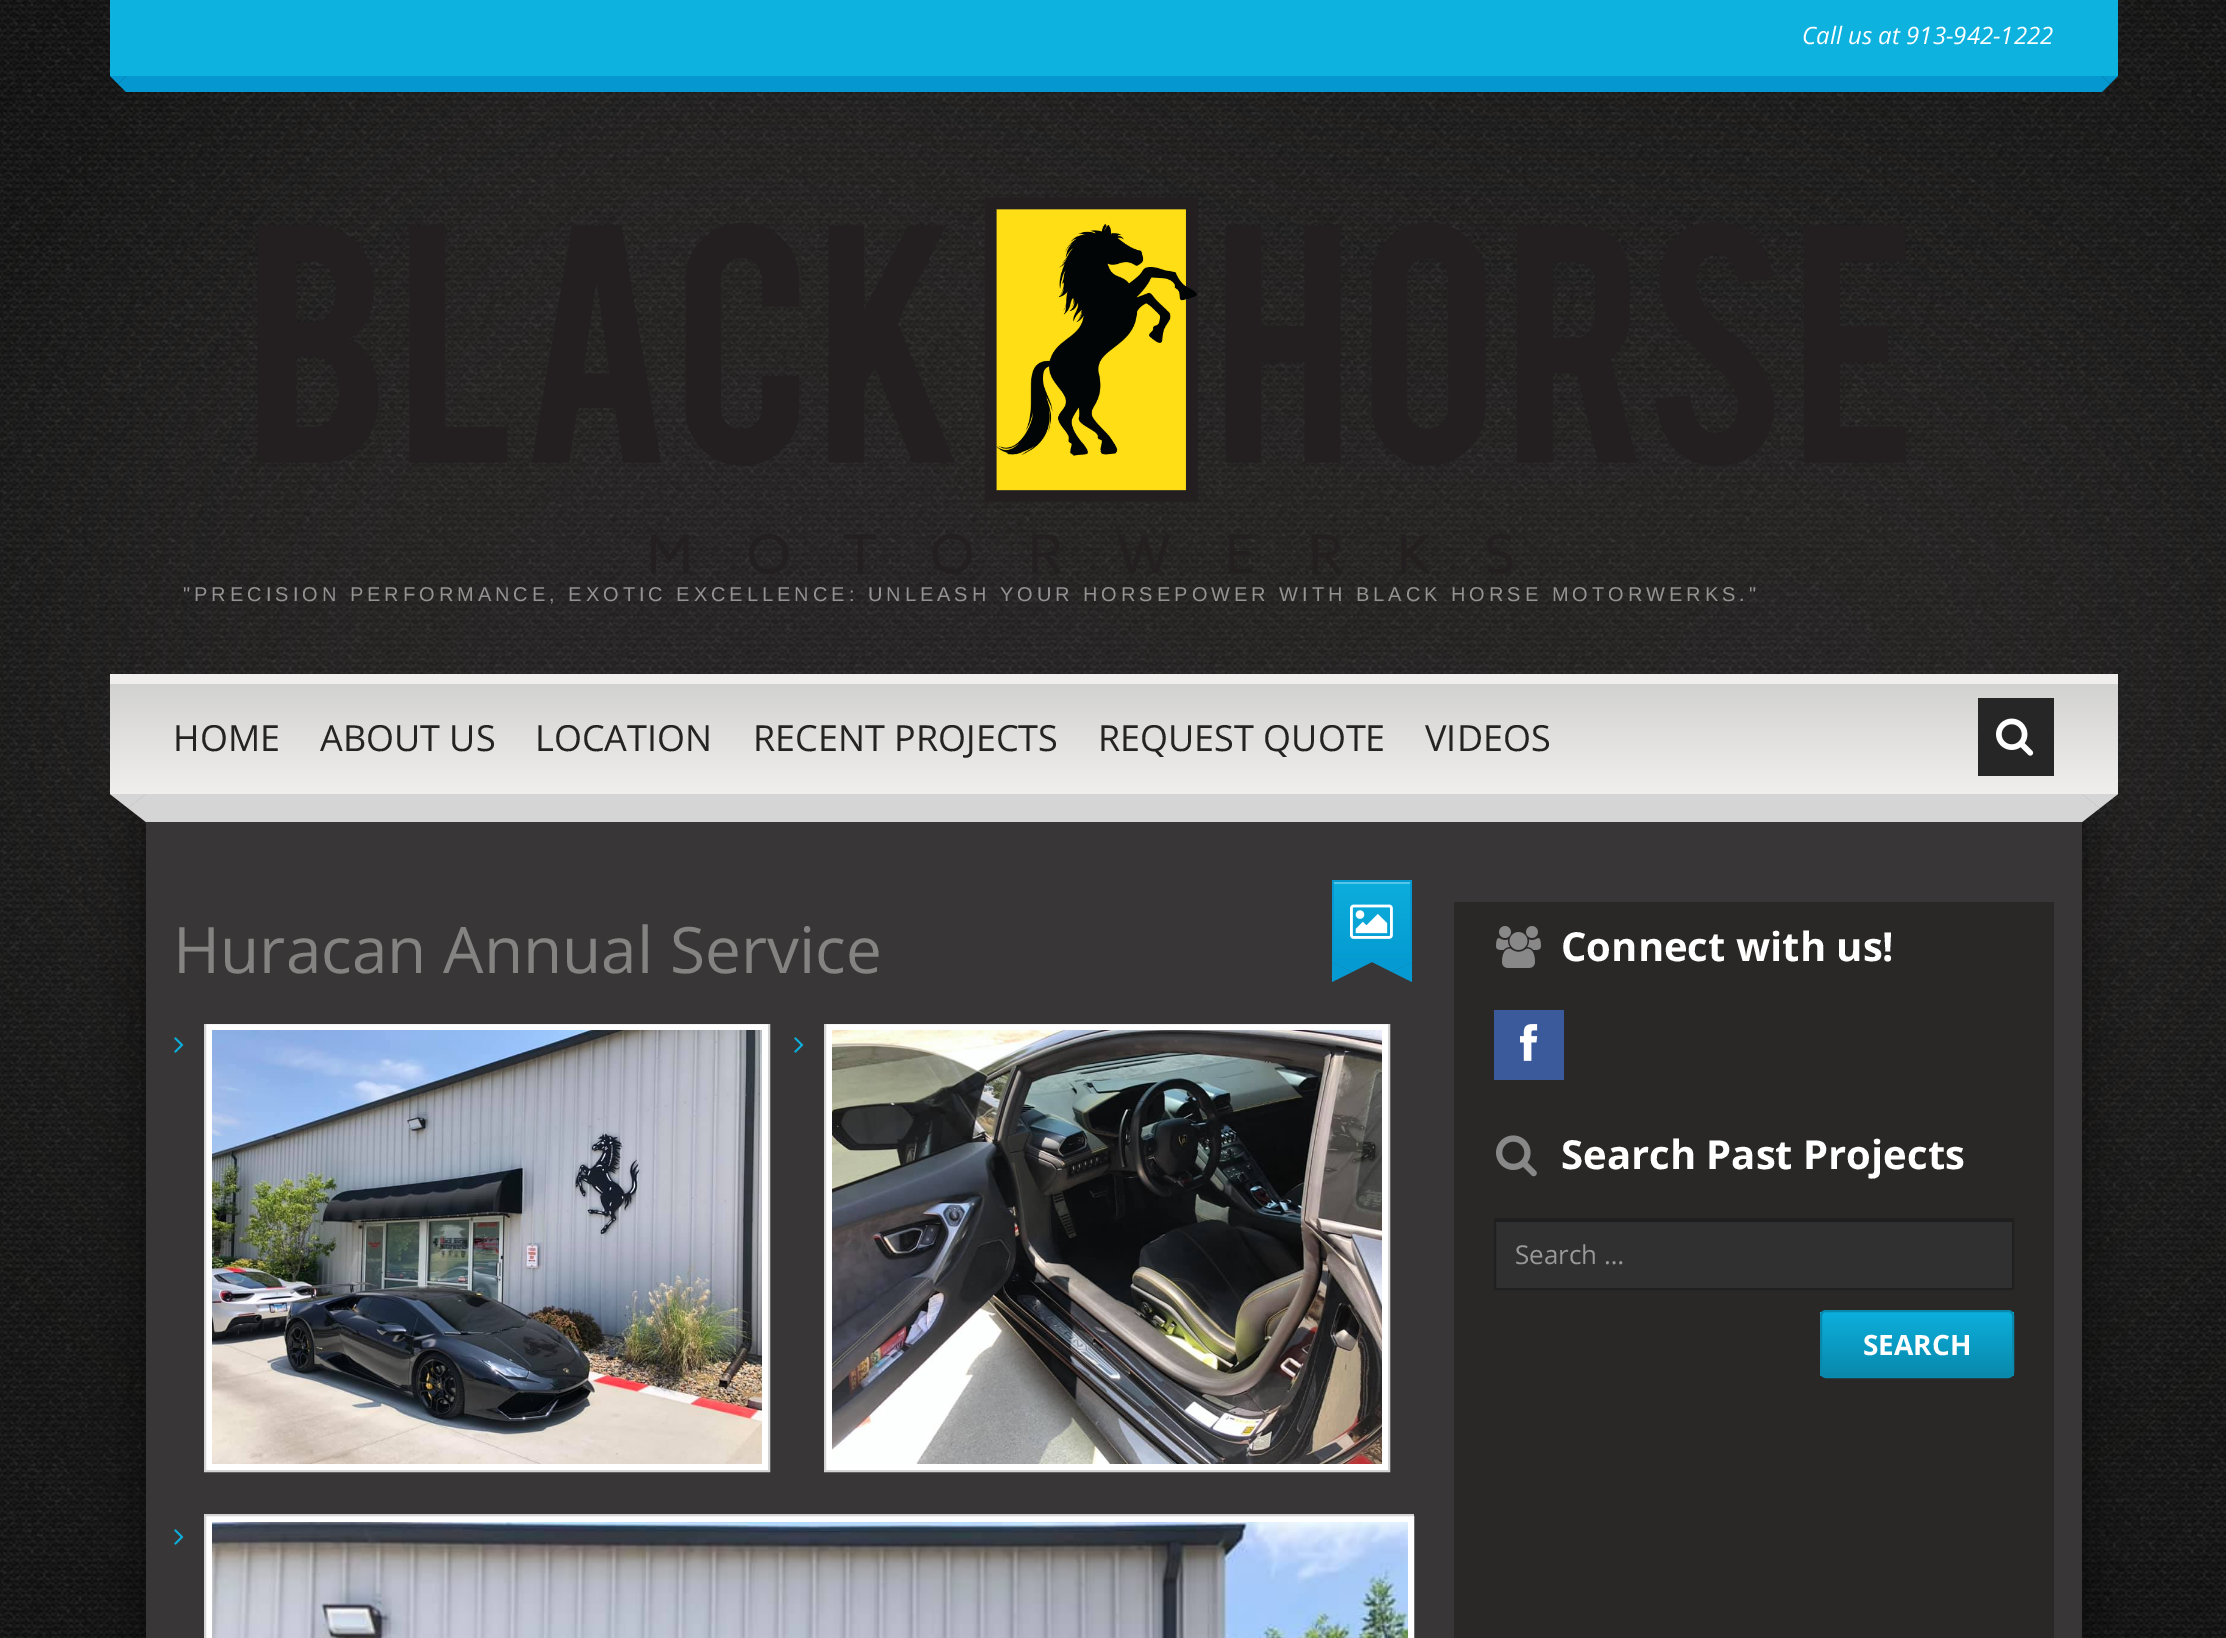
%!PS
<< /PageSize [2226 1638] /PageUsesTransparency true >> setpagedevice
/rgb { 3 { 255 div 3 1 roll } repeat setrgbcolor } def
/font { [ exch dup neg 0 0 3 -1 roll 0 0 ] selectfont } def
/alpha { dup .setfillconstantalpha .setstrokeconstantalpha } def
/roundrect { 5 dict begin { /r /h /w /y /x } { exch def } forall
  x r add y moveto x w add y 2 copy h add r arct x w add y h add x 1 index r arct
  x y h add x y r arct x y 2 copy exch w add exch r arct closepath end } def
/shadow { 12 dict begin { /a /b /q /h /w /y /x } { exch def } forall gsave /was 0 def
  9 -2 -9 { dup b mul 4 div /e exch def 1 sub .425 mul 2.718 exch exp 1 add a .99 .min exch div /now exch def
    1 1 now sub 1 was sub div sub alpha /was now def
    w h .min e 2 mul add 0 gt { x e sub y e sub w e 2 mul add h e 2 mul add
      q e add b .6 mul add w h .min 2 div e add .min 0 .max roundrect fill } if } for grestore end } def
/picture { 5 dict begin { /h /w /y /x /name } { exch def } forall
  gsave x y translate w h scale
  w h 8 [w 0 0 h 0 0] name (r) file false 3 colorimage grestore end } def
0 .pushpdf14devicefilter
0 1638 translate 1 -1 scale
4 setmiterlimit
255 255 255 rgb
0 0 2226 1638 rectfill
(img/1.rgb) 0 0 2226 1638 picture
(img/2.rgb) 0 0 2226 1561 picture
13 178 222 rgb
110 0 2008 76 rectfill
4 151 208 rgb
126 76 1976 16 rectfill
110 76 moveto 126 76 lineto 118 84 lineto closepath fill
126 76 moveto 126 92 lineto 118 84 lineto closepath fill
2102 76 moveto 2118 76 lineto 2110 84 lineto closepath fill
2102 92 moveto 2102 76 lineto 2110 84 lineto closepath fill
(img/3.rgb) 257 197 1649 377 picture
0 0 0 rgb
146 822 1936 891 0 25 0.6 shadow
gsave 110 684 moveto 2118 684 lineto 2118 794 lineto 110 794 lineto closepath clip newpath
<< /ShadingType 2 /ColorSpace /DeviceRGB /Coords [1114 684 1114 794] /Extend [true true] /Function << /FunctionType 2 /Domain [0 1] /C0 [0.824 0.824 0.82] /C1 [0.945 0.937 0.933] /N 1 >> >> shfill grestore
241 239 238 rgb
110 674 2008 10 rectfill
38 38 38 rgb
1978 698 76 78 rectfill
(img/4.rgb) 1996 718 38 38 picture
214 213 213 rgb
146 794 1936 28 rectfill
110 794 moveto 146 794 lineto 128 808 lineto closepath fill
146 794 moveto 146 822 lineto 128 808 lineto closepath fill
2082 794 moveto 2118 794 lineto 2100 808 lineto closepath fill
2082 822 moveto 2082 794 lineto 2100 808 lineto closepath fill
56 54 54 rgb
146 822 1936 816 rectfill
gsave 1334 884 moveto 1410 884 lineto 1410 962 lineto 1334 962 lineto closepath clip newpath
<< /ShadingType 2 /ColorSpace /DeviceRGB /Coords [1372 882 1372 962] /Extend [true true] /Function << /FunctionType 2 /Domain [0 1] /C0 [0.047 0.682 0.863] /C1 [0.02 0.608 0.824] /N 1 >> >> shfill grestore
[
  [1334 882 76 2 85 198 231]
  [1332 880 80 2 5 155 210]
  [1410 880 2 82 5 155 210]
  [1332 880 2 82 5 155 210]
] { aload pop rgb rectfill } forall
(img/5.rgb) 1350 904 43 35 picture
1332 962 moveto 1372 962 lineto 1352 972 lineto closepath fill
1332 982 moveto 1332 962 lineto 1352 972 lineto closepath fill
1372 962 moveto 1412 962 lineto 1392 972 lineto closepath fill
1412 962 moveto 1412 982 lineto 1392 972 lineto closepath fill
(img/6.rgb) 174 1037 10 16 picture
255 255 255 rgb
6 setlinewidth
209 1027 556 440 rectstroke
(img/7.rgb) 212 1030 550 434 picture
gsave
174 1024 1240 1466 rectclip
212 212 212 rgb
2 setlinewidth
205 1023 564 448 rectstroke
grestore
(img/6.rgb) 794 1037 10 16 picture
829 1027 556 440 rectstroke
(img/8.rgb) 832 1030 550 434 picture
gsave
174 1024 1240 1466 rectclip
212 212 212 rgb
2 setlinewidth
825 1023 564 448 rectstroke
grestore
(img/6.rgb) 174 1529 10 16 picture
209 1519 1202 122 rectstroke
(img/9.rgb) 212 1522 1196 116 picture
gsave
174 1024 1240 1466 rectclip
212 212 212 rgb
2 setlinewidth
205 1515 1210 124 rectstroke
grestore
42 40 39 rgb
1454 902 600 736 rectfill
(img/10.rgb) 1496 926 45 42 picture
59 90 155 rgb
1494 1010 70 70 rectfill
(img/11.rgb) 1520 1024 18 37 picture
(img/12.rgb) 1496 1135 41 42 picture
48 48 48 rgb
1496 1222 516 66 rectfill
29 29 29 rgb
1496 1220 516 2 rectfill
32 32 32 rgb
2 setlinewidth
1495 1219 518 70 rectstroke
gsave
1820 1310 194 68 6 roundrect clip newpath
gsave 1820 1312 moveto 2014 1312 lineto 2014 1376 lineto 1820 1376 lineto closepath clip newpath
<< /ShadingType 2 /ColorSpace /DeviceRGB /Coords [1917 1312 1917 1376] /Extend [true true] /Function << /FunctionType 2 /Domain [0 1] /C0 [0.047 0.686 0.863] /C1 [0.035 0.537 0.675] /N 1 >> >> shfill grestore
grestore
9 137 172 rgb
1821 1311 192 66 5 roundrect stroke
/OpenSans-Italic 24 font
255 255 255 rgb
1802 44 moveto (Call us at 913-942-1222) show
/LiberationSans-Regular 20 font
148 146 146 rgb
183 601 moveto 4 0 ("PRECISION PERFORMANCE, EXOTIC EXCELLENCE: UNLEASH YOUR HORSEPOWER WITH BLACK HORSE MOTORWERKS.") ashow
/OpenSans-Regular 36 font
37 35 34 rgb
[
  [(HOME) 173 751]
  [(ABOUT US) 320 751]
  [(LOCATION) 535 751]
  [(RECENT PROJECTS) 753 751]
  [(REQUEST QUOTE) 1098 751]
  [(VIDEOS) 1425 751]
] { aload pop moveto show } forall
/OpenSans-Regular 64 font
133 131 130 rgb
173 973 moveto (Huracan Annual Service) show
/OpenSans-Bold 40 font
255 255 255 rgb
1561 961 moveto (Connect with us!) show
1561 1169 moveto (Search Past Projects) show
/OpenSans-Regular 26 font
153 153 153 rgb
1515 1264 moveto (Search …) show
/OpenSans-Bold 28 font
255 255 255 rgb
1863 1355 moveto (SEARCH) show
.poppdf14devicefilter showpage
